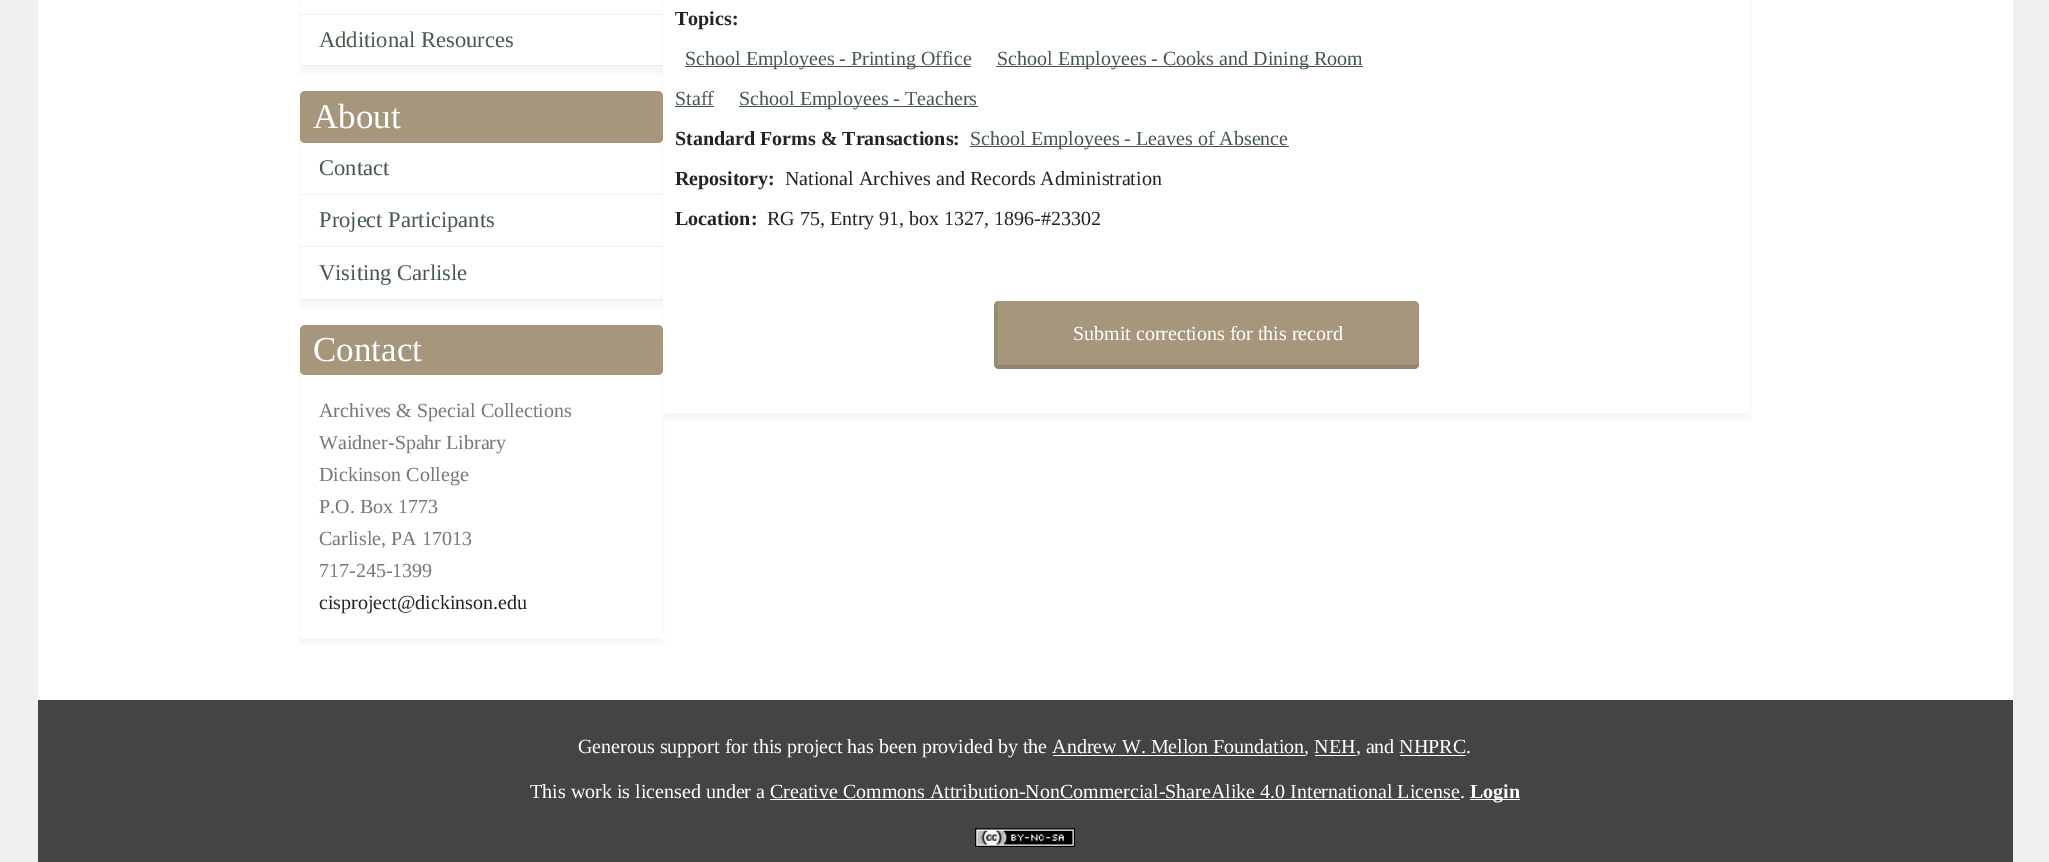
%!PS
<< /PageSize [2049 862] /PageUsesTransparency true >> setpagedevice
/rgb { 3 { 255 div 3 1 roll } repeat setrgbcolor } def
/font { [ exch dup neg 0 0 3 -1 roll 0 0 ] selectfont } def
/alpha { dup .setfillconstantalpha .setstrokeconstantalpha } def
/roundrect { 5 dict begin { /r /h /w /y /x } { exch def } forall
  x r add y moveto x w add y 2 copy h add r arct x w add y h add x 1 index r arct
  x y h add x y r arct x y 2 copy exch w add exch r arct closepath end } def
/shadow { 12 dict begin { /a /b /q /h /w /y /x } { exch def } forall gsave /was 0 def
  9 -2 -9 { dup b mul 4 div /e exch def 1 sub .425 mul 2.718 exch exp 1 add a .99 .min exch div /now exch def
    1 1 now sub 1 was sub div sub alpha /was now def
    w h .min e 2 mul add 0 gt { x e sub y e sub w e 2 mul add h e 2 mul add
      q e add b .6 mul add w h .min 2 div e add .min 0 .max roundrect fill } if } for grestore end } def
/picture { 5 dict begin { /h /w /y /x /name } { exch def } forall
  gsave x y translate w h scale
  w h 8 [w 0 0 h 0 0] name (r) file false 3 colorimage grestore end } def
0 .pushpdf14devicefilter
0 862 translate 1 -1 scale
4 setmiterlimit
239 239 239 rgb
0 0 2049 862 rectfill
255 255 255 rgb
38 0 1975 700 rectfill
gsave
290 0 moveto 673 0 lineto 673 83 lineto 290 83 lineto closepath 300 -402 moveto 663 -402 lineto 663 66 lineto 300 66 lineto closepath eoclip newpath
166 151 124 rgb
300 -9 363 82 0 3 0.1 shadow
grestore
238 238 238 rgb
300 14 363 1 rectfill
300 65 363 1 rectfill
gsave
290 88 moveto 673 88 lineto 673 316 lineto 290 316 lineto closepath 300 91 moveto 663 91 lineto 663 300 lineto 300 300 lineto closepath eoclip newpath
166 151 124 rgb
300 98 363 208 0 3 0.1 shadow
grestore
166 151 124 rgb
300 91 363 52 5 roundrect fill
[
  [300 194 363 1 238 238 238]
  [300 246 363 1 238 238 238]
  [300 299 363 1 238 238 238]
] { aload pop rgb rectfill } forall
166 151 124 rgb
300 331 363 313 0 3 0.1 shadow
255 255 255 rgb
300 328 363 310 rectfill
166 151 124 rgb
300 325 363 50 5 roundrect fill
663 -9 1087 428 0 3 0.1 shadow
[
  [663 0 1087 413 255 255 255]
  [685 66 286 1 70 89 75]
  [996 66 367 1 70 89 75]
  [675 106 39 1 70 89 75]
  [739 106 239 1 70 89 75]
  [970 146 319 1 70 89 75]
] { aload pop rgb rectfill } forall
166 151 124 rgb
994 301 425 68 5 roundrect fill
0.12 alpha
0 0 0 rgb
1419 364 moveto 1419 366 1418 369 1416 369 curveto 997 369 lineto 995 367 lineto 998 364 lineto 999 365 lineto 1414 365 lineto closepath fill
0.08 alpha
998 301 moveto 998 302 997 363 998 364 curveto 995 367 lineto 994 367 994 365 994 364 curveto 994 306 lineto 994 304 995 302 997 301 curveto closepath fill
1 alpha
[
  [38 700 1975 162 68 68 68]
  [1053 755 252 1 255 255 255]
  [1315 755 41 1 255 255 255]
  [1400 755 66 1 255 255 255]
  [1470 799 50 1 255 255 255]
  [770 799 690 1 255 255 255]
] { aload pop rgb rectfill } forall
(img/1.rgb) 975 828 100 19 picture
/LiberationSerif-Regular 22.5 font
70 89 75 rgb
319 47 moveto (Additional Resources) show
/LiberationSerif-Regular 35 font
255 255 255 rgb
313 128 moveto (About) show
/LiberationSerif-Regular 22.5 font
70 89 75 rgb
[
  [(Contact) 319 175]
  [(Project Participants) 319 227]
  [(Visiting Carlisle) 319 280]
] { aload pop moveto show } forall
/LiberationSerif-Regular 35 font
255 255 255 rgb
313 361 moveto (Contact) show
/LiberationSerif-Regular 20 font
119 119 119 rgb
[
  [(Archives & Special Collections) 319 417]
  [(Waidner-Spahr Library) 319 449]
  [(Dickinson College) 319 481]
  [(P.O. Box 1773) 319 513]
  [(Carlisle, PA 17013) 319 545]
  [(717-245-1399) 319 577]
] { aload pop moveto show } forall
36 36 36 rgb
319 609 moveto (cisproject@dickinson.edu) show
/LiberationSerif-Bold 20 font
675 25 moveto (Topics:) show
/LiberationSerif-Regular 20 font
70 89 75 rgb
[
  [(School Employees - Printing Office) 685 65]
  [(School Employees - Cooks and Dining Room) 997 65]
  [(Staff) 675 105]
  [(School Employees - Teachers) 739 105]
] { aload pop moveto show } forall
/LiberationSerif-Bold 20 font
36 36 36 rgb
675 145 moveto (Standard Forms & Transactions:) show
/LiberationSerif-Regular 20 font
70 89 75 rgb
970 145 moveto (School Employees - Leaves of Absence) show
/LiberationSerif-Bold 20 font
36 36 36 rgb
675 185 moveto (Repository:) show
/LiberationSerif-Regular 20 font
785 185 moveto (National Archives and Records Administration) show
/LiberationSerif-Bold 20 font
675 225 moveto (Location:) show
/LiberationSerif-Regular 20 font
767 225 moveto (RG 75, Entry 91, box 1327, 1896-#23302) show
255 255 255 rgb
[
  [(Submit corrections for this record) 1073 340]
  [(Generous support for this project has been provided by the Andrew W. Mellon Foundation, NEH, and NHPRC.) 578 753]
  [(This work is licensed under a Creative Commons Attribution-NonCommercial-ShareAlike 4.0 International License.) 530 798]
] { aload pop moveto show } forall
/LiberationSerif-Bold 20 font
1470 798 moveto (Login) show
.poppdf14devicefilter showpage
